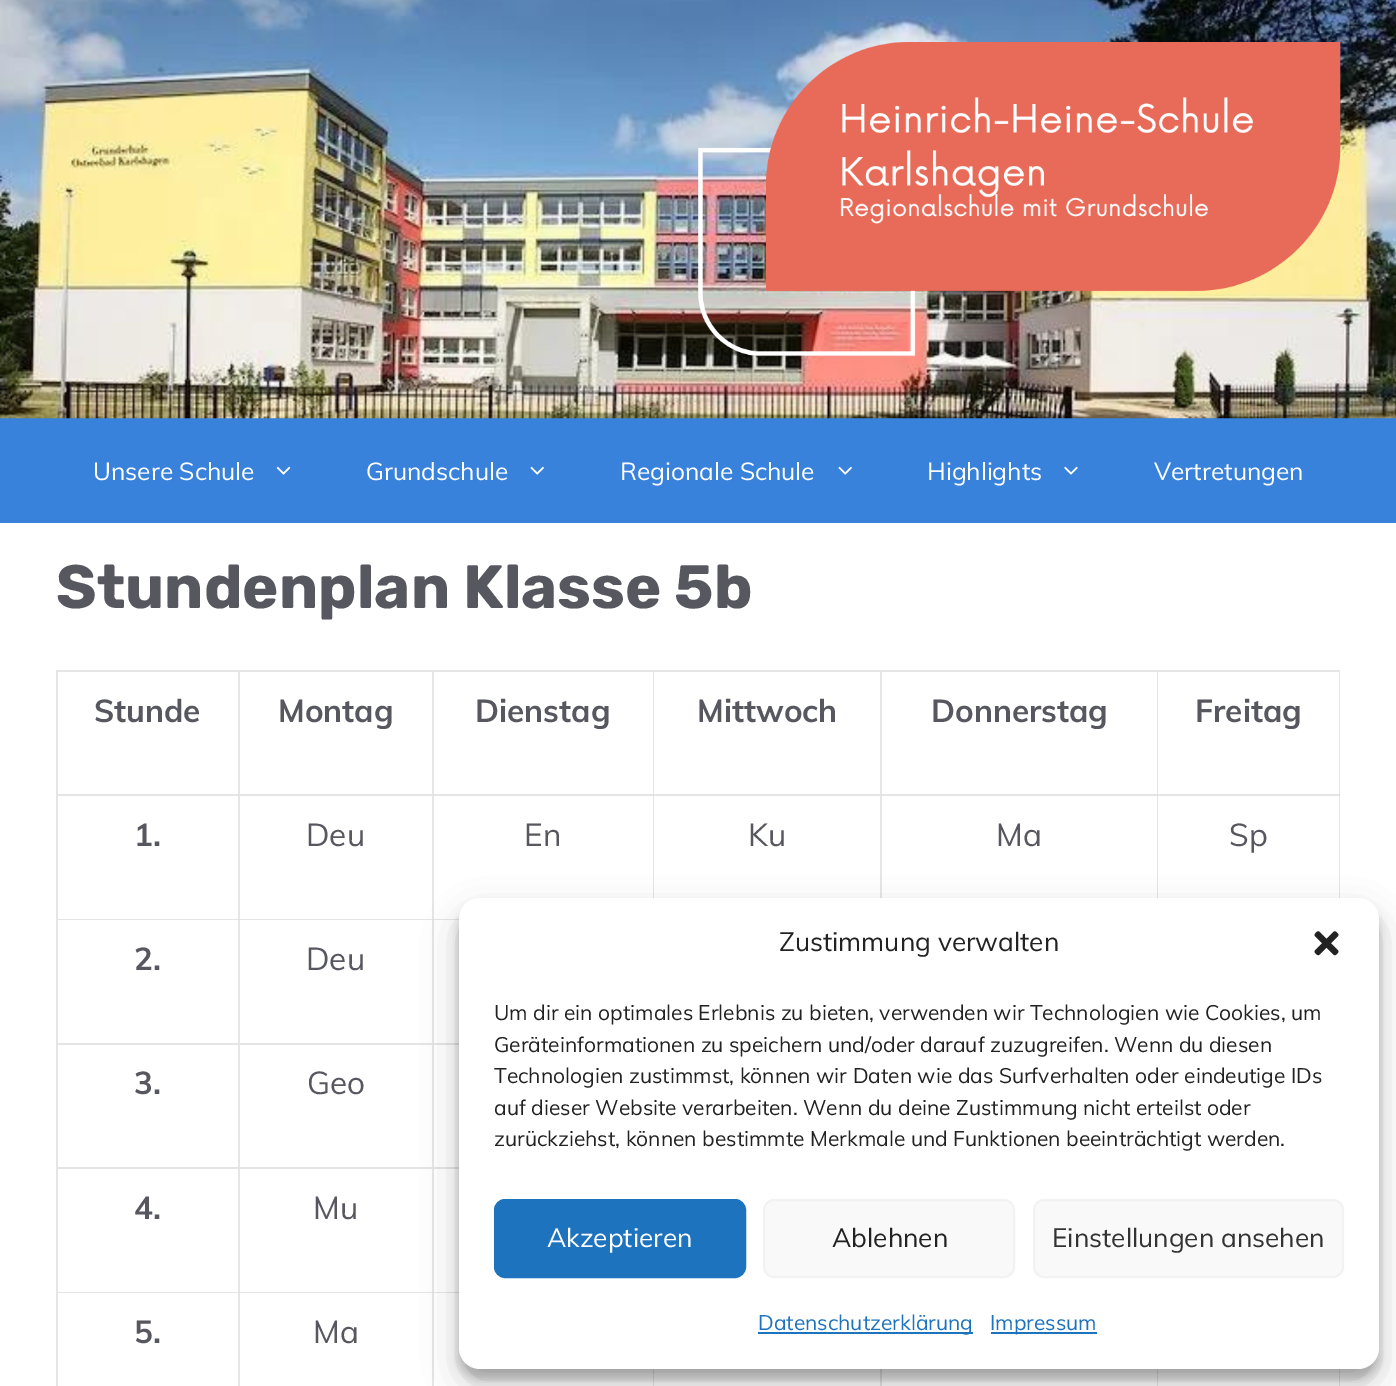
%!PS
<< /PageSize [1396 1386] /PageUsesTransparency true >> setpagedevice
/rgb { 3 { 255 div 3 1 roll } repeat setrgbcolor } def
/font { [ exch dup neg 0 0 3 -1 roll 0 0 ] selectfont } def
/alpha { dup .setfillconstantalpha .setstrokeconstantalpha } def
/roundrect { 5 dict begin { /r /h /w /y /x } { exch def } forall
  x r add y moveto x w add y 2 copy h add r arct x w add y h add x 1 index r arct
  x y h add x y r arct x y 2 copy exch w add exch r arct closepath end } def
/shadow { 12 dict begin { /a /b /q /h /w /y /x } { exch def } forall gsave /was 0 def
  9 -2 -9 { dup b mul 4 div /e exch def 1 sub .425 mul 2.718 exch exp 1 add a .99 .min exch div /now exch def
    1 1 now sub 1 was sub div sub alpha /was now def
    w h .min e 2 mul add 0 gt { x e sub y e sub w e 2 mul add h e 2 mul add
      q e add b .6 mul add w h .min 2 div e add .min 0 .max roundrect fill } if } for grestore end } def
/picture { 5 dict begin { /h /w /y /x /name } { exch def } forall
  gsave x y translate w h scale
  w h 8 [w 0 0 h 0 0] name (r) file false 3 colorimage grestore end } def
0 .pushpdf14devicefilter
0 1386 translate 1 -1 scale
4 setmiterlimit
255 255 255 rgb
0 0 1396 1386 rectfill
57 130 220 rgb
0 418 1396 105 rectfill
(img/1.rgb) 0 0 1396 419 picture
(img/2.rgb) 276 466 15 9 picture
(img/3.rgb) 530 466 14 9 picture
(img/3.rgb) 838 466 14 9 picture
(img/4.rgb) 1064 466 14 9 picture
230 230 230 rgb
56 670 moveto 1340 670 lineto 1340 672 lineto 58 672 lineto closepath fill
0.1 alpha
0 0 0 rgb
56 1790 moveto 56 670 lineto 58 672 lineto 58 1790 lineto closepath fill
1 alpha
230 230 230 rgb
240 672 moveto 240 796 lineto 238 794 lineto 238 672 lineto closepath fill
0.1 alpha
0 0 0 rgb
240 796 moveto 58 796 lineto 58 794 lineto 238 794 lineto closepath fill
1 alpha
230 230 230 rgb
434 672 moveto 434 796 lineto 432 794 lineto 432 672 lineto closepath fill
0.1 alpha
0 0 0 rgb
434 796 moveto 240 796 lineto 240 794 lineto 432 794 lineto closepath fill
1 alpha
230 230 230 rgb
654 672 moveto 654 796 lineto 653 794 lineto 653 672 lineto closepath fill
0.1 alpha
0 0 0 rgb
654 796 moveto 434 796 lineto 434 794 lineto 653 794 lineto closepath fill
1 alpha
230 230 230 rgb
882 672 moveto 882 796 lineto 880 794 lineto 880 672 lineto closepath fill
0.1 alpha
0 0 0 rgb
882 796 moveto 654 796 lineto 654 794 lineto 880 794 lineto closepath fill
1 alpha
230 230 230 rgb
1158 672 moveto 1158 796 lineto 1157 794 lineto 1157 672 lineto closepath fill
0.1 alpha
0 0 0 rgb
1158 796 moveto 882 796 lineto 882 794 lineto 1157 794 lineto closepath fill
1 alpha
230 230 230 rgb
1340 672 moveto 1340 796 lineto 1339 794 lineto 1339 672 lineto closepath fill
0.1 alpha
0 0 0 rgb
1340 796 moveto 1158 796 lineto 1158 794 lineto 1339 794 lineto closepath fill
1 alpha
230 230 230 rgb
240 796 moveto 240 920 lineto 238 919 lineto 238 796 lineto closepath fill
0.1 alpha
0 0 0 rgb
240 920 moveto 58 920 lineto 58 919 lineto 238 919 lineto closepath fill
1 alpha
230 230 230 rgb
434 796 moveto 434 920 lineto 432 919 lineto 432 796 lineto closepath fill
0.1 alpha
0 0 0 rgb
434 920 moveto 240 920 lineto 240 919 lineto 432 919 lineto closepath fill
1 alpha
230 230 230 rgb
654 796 moveto 654 920 lineto 653 919 lineto 653 796 lineto closepath fill
0.1 alpha
0 0 0 rgb
654 920 moveto 434 920 lineto 434 919 lineto 653 919 lineto closepath fill
1 alpha
230 230 230 rgb
882 796 moveto 882 920 lineto 880 919 lineto 880 796 lineto closepath fill
1158 796 moveto 1158 920 lineto 1157 919 lineto 1157 796 lineto closepath fill
1340 796 moveto 1340 920 lineto 1339 919 lineto 1339 796 lineto closepath fill
240 920 moveto 240 1045 lineto 238 1043 lineto 238 920 lineto closepath fill
0.1 alpha
0 0 0 rgb
240 1045 moveto 58 1045 lineto 58 1043 lineto 238 1043 lineto closepath fill
1 alpha
230 230 230 rgb
434 920 moveto 434 1045 lineto 432 1043 lineto 432 920 lineto closepath fill
0.1 alpha
0 0 0 rgb
434 1045 moveto 240 1045 lineto 240 1043 lineto 432 1043 lineto closepath fill
654 1045 moveto 434 1045 lineto 434 1043 lineto 653 1043 lineto closepath fill
1 alpha
230 230 230 rgb
240 1045 moveto 240 1169 lineto 238 1167 lineto 238 1045 lineto closepath fill
0.1 alpha
0 0 0 rgb
240 1169 moveto 58 1169 lineto 58 1167 lineto 238 1167 lineto closepath fill
1 alpha
230 230 230 rgb
434 1045 moveto 434 1169 lineto 432 1167 lineto 432 1045 lineto closepath fill
0.1 alpha
0 0 0 rgb
434 1169 moveto 240 1169 lineto 240 1167 lineto 432 1167 lineto closepath fill
654 1169 moveto 434 1169 lineto 434 1167 lineto 653 1167 lineto closepath fill
1 alpha
230 230 230 rgb
240 1169 moveto 240 1293 lineto 238 1292 lineto 238 1169 lineto closepath fill
0.1 alpha
0 0 0 rgb
240 1293 moveto 58 1293 lineto 58 1292 lineto 238 1292 lineto closepath fill
1 alpha
230 230 230 rgb
434 1169 moveto 434 1293 lineto 432 1292 lineto 432 1169 lineto closepath fill
0.1 alpha
0 0 0 rgb
434 1293 moveto 240 1293 lineto 240 1292 lineto 432 1292 lineto closepath fill
654 1293 moveto 434 1293 lineto 434 1292 lineto 653 1292 lineto closepath fill
1 alpha
230 230 230 rgb
240 1293 moveto 240 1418 lineto 238 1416 lineto 238 1293 lineto closepath fill
434 1293 moveto 434 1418 lineto 432 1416 lineto 432 1293 lineto closepath fill
654 1293 moveto 654 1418 lineto 653 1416 lineto 653 1293 lineto closepath fill
882 1293 moveto 882 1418 lineto 880 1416 lineto 880 1293 lineto closepath fill
1158 1293 moveto 1158 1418 lineto 1157 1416 lineto 1157 1293 lineto closepath fill
1340 1293 moveto 1340 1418 lineto 1339 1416 lineto 1339 1293 lineto closepath fill
0 0 0 rgb
459 908 920 471 21 5 0.23 shadow
459 915 920 471 21 17.5 0.19 shadow
255 255 255 rgb
459 898 920 471 21 roundrect fill
(img/5.rgb) 1314 931 25 25 picture
30 115 190 rgb
495 1200 250 77 10 roundrect gsave fill grestore
2 setlinewidth
stroke
249 249 249 rgb
764 1200 250 77 10 roundrect gsave fill grestore
242 242 242 rgb
stroke
249 249 249 rgb
1034 1200 309 77 10 roundrect gsave fill grestore
242 242 242 rgb
stroke
30 115 190 rgb
758 1332 215 2 rectfill
991 1332 106 2 rectfill
/Muli-Regular 24.5 font
255 255 255 rgb
[
  [(Unsere Schule) 93 480]
  [(Grundschule) 366 480]
  [(Regionale Schule) 620 480]
  [(Highlights) 927 480]
  [(Vertretungen) 1154 480]
] { aload pop moveto show } forall
/Rubik-Bold 61.25 font
87 87 96 rgb
56 608 moveto (Stundenplan Klasse 5b) show
/Muli-Bold 31.5 font
[
  [(Stunde) 94 722]
  [(Montag) 278 722]
  [(Dienstag) 475 722]
  [(Mittwoch) 697 722]
  [(Donnerstag) 931 722]
  [(Freitag) 1195 722]
  [(1.) 134 846]
] { aload pop moveto show } forall
/Muli-Regular 31.5 font
[
  [(Deu) 306 846]
  [(En) 524 846]
  [(Ku) 748 846]
  [(Ma) 996 846]
  [(Sp) 1229 846]
] { aload pop moveto show } forall
/Muli-Bold 31.5 font
134 970 moveto (2.) show
/Muli-Regular 31.5 font
306 970 moveto (Deu) show
/Muli-Bold 31.5 font
134 1094 moveto (3.) show
/Muli-Regular 31.5 font
307 1094 moveto (Geo) show
/Muli-Bold 31.5 font
134 1219 moveto (4.) show
/Muli-Regular 31.5 font
313 1219 moveto (Mu) show
/Muli-Bold 31.5 font
134 1343 moveto (5.) show
/Muli-Regular 31.5 font
313 1343 moveto (Ma) show
/Muli-Regular 26.25 font
34 34 34 rgb
779 951 moveto (Zustimmung verwalten) show
/Muli-Regular 21 font
[
  [(Um dir ein optimales Erlebnis zu bieten, verwenden wir Technologien wie Cookies, um) 494 1020]
  [(Geräteinformationen zu speichern und/oder darauf zuzugreifen. Wenn du diesen) 494 1052]
  [(Technologien zustimmst, können wir Daten wie das Surfverhalten oder eindeutige IDs) 494 1083]
  [(auf dieser Website verarbeiten. Wenn du deine Zustimmung nicht erteilst oder) 494 1115]
  [(zurückziehst, können bestimmte Merkmale und Funktionen beeinträchtigt werden.) 494 1146]
] { aload pop moveto show } forall
/Muli-Regular 26.25 font
255 255 255 rgb
547 1247 moveto (Akzeptieren) show
34 34 34 rgb
832 1247 moveto (Ablehnen) show
51 51 51 rgb
1052 1247 moveto (Einstellungen ansehen) show
/Muli-Regular 21 font
30 115 190 rgb
758 1330 moveto (Datenschutzerklärung) show
990 1330 moveto (Impressum) show
.poppdf14devicefilter showpage
